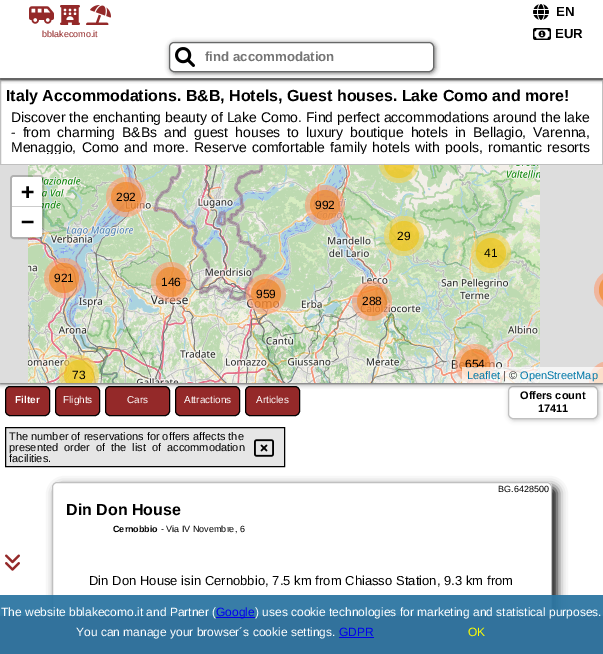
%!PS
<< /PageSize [603 654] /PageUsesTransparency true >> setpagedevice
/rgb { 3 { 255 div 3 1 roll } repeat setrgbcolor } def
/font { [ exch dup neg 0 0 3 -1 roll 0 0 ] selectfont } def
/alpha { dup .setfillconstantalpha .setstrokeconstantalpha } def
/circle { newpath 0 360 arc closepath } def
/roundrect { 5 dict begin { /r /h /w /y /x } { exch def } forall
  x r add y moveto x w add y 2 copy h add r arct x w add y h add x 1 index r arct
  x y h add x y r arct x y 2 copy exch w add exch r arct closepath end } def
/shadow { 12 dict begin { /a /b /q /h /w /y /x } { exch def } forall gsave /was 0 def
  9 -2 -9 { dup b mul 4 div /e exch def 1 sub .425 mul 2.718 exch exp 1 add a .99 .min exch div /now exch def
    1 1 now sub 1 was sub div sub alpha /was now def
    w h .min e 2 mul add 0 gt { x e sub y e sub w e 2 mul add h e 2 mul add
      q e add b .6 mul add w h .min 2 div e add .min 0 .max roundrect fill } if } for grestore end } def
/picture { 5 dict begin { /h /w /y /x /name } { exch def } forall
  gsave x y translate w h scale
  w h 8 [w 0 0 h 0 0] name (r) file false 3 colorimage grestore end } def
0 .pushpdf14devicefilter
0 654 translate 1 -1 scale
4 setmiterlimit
255 255 255 rgb
0 0 603 654 rectfill
148 41 41 rgb
5.5 386.5 44 29 4.5 roundrect gsave fill grestore
0 0 0 rgb
stroke
148 41 41 rgb
55.5 386.5 44 29 4.5 roundrect gsave fill grestore
0 0 0 rgb
stroke
148 41 41 rgb
105.5 386.5 64 29 4.5 roundrect gsave fill grestore
0 0 0 rgb
stroke
148 41 41 rgb
175.5 386.5 64 29 4.5 roundrect gsave fill grestore
0 0 0 rgb
stroke
148 41 41 rgb
245.5 386.5 54 29 4.5 roundrect gsave fill grestore
0 0 0 rgb
stroke
192 192 192 rgb
509 387 90 33 5 2.5 1 shadow
255 255 255 rgb
508.5 386.5 89 32 4.5 roundrect gsave fill grestore
192 192 192 rgb
stroke
gsave
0 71 moveto 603 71 lineto 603 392 lineto 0 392 lineto closepath 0 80 moveto 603 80 lineto 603 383 lineto 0 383 lineto closepath eoclip newpath
0 0 0 rgb
0 80 603 303 0 2.5 1 shadow
grestore
0.5 80.5 602 84 rectstroke
0 0 0 rgb
0 0 603 78 0 2.5 1 shadow
255 255 255 rgb
0 0 603 78 rectfill
(img/1.rgb) 533 4 16 16 picture
(img/2.rgb) 29 6 25 18 picture
(img/3.rgb) 60 5 20 20 picture
(img/4.rgb) 86 5 25 20 picture
(img/5.rgb) 533 28 18 12 picture
103 104 104 rgb
170 43 265 30 5 2.5 1 shadow
255 255 255 rgb
169.5 42.5 264 29 4.5 roundrect gsave fill grestore
103 104 104 rgb
stroke
(img/6.rgb) 175 47 20 20 picture
221 221 221 rgb
0 165 603 218 rectfill
(img/9.rgb) 28 166 256 217 picture
0.2 alpha
0 0 0 rgb
2 setlinewidth
11 176 32 62 3 roundrect stroke
1 alpha
255 255 255 rgb
14 177 moveto 40 177 lineto 41 177 42 178 42 179 curveto 42 207 lineto 12 207 lineto 12 179 lineto 12 178 13 177 14 177 curveto closepath fill
204 204 204 rgb
12 206 30 1 rectfill
255 255 255 rgb
12 207 moveto 42 207 lineto 42 235 lineto 42 236 41 237 40 237 curveto 14 237 lineto 13 237 12 236 12 235 curveto closepath fill
(img/7.rgb) 28 165 256 1 picture
(img/8.rgb) 284 165 256 1 picture
(img/10.rgb) 284 166 256 217 picture
0.6 alpha
241 211 87 rgb
379 165 moveto 419 165 lineto 419 163 lineto 419 174 410 183 399 183 curveto 388 183 379 174 379 163 curveto closepath fill
240 194 12 rgb
384 165 moveto 414 165 lineto 414 163 lineto 414 171.5 407.5 178 399 178 curveto 390.5 178 384 171.5 384 163 curveto closepath fill
253 156 115 rgb
126 197 20 circle fill
241 128 23 rgb
126 197 15 circle fill
253 156 115 rgb
325 205 20 circle fill
241 128 23 rgb
325 205 15 circle fill
241 211 87 rgb
404 236 20 circle fill
240 194 12 rgb
404 236 15 circle fill
241 211 87 rgb
491 253 20 circle fill
240 194 12 rgb
491 253 15 circle fill
253 156 115 rgb
64 278 20 circle fill
241 128 23 rgb
64 278 15 circle fill
253 156 115 rgb
171 282 20 circle fill
241 128 23 rgb
171 282 15 circle fill
1 alpha
240 182 157 rgb
614 270 moveto 603 270 lineto 603 310 lineto 614 310 lineto 603 310 594 301 594 290 curveto 594 279 603 270 614 270 curveto closepath fill
241 150 77 rgb
614 275 moveto 603 275 lineto 603 305 lineto 614 305 lineto 605.5 305 599 298.5 599 290 curveto 599 281.5 605.5 275 614 275 curveto closepath fill
0.6 alpha
253 156 115 rgb
266 294 20 circle fill
241 128 23 rgb
266 294 15 circle fill
253 156 115 rgb
372 301 20 circle fill
241 128 23 rgb
372 301 15 circle fill
gsave
0 165 603 218 rectclip
241 211 87 rgb
79 375 20 circle fill
240 194 12 rgb
79 375 15 circle fill
253 156 115 rgb
475 364 20 circle fill
grestore
475 364 15 circle fill
gsave
0 165 603 218 rectclip
1 alpha
240 182 157 rgb
589 361 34 40 20 roundrect fill
241 150 77 rgb
594 366 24 30 15 roundrect fill
grestore
1 alpha
230 230 230 rgb
5.5 427.5 moveto 284.5 427.5 lineto 284.5 466.5 lineto 5.5 466.5 lineto closepath gsave fill grestore
0 0 0 rgb
1 setlinewidth
stroke
(img/11.rgb) 254 439 20 18 picture
(img/12.rgb) 5 554 15 17 picture
57 487 500 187 5 5 1 shadow
255 255 255 rgb
57 482 moveto 547 482 lineto 550 482 552 484 552 487 curveto 552 616 lineto 52 616 lineto 52 487 lineto 52 484 54 482 57 482 curveto closepath fill
192 192 192 rgb
52.5 482.5 499 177 4.5 roundrect stroke
148 41 41 rgb
0 616 603 38 0 1 1 shadow
[
  [0 616 603 38 148 41 41]
] { aload pop rgb rectfill } forall
0.95 alpha
[
  [0 595 603 59 45 118 162]
] { aload pop rgb rectfill } forall
1 alpha
[
  [339 637 35 1 0 0 238]
] { aload pop rgb rectfill } forall
/LiberationSans-Bold 13.25 font
0 0 0 rgb
556 16 moveto (EN) show
/LiberationSans-Regular 9 font
148 41 41 rgb
42 37 moveto (bblakecomo.it) show
/LiberationSans-Bold 13.25 font
0 0 0 rgb
555 38 moveto (EUR) show
117 117 117 rgb
205 61 moveto (find accommodation) show
/LiberationSans-Bold 16 font
0 0 0 rgb
6 101 moveto (Italy Accommodations. B&B, Hotels, Guest houses. Lake Como and more!) show
/LiberationSans-Regular 14 font
11 122 moveto (Discover the enchanting beauty of Lake Como. Find perfect accommodations around the lake) show
11 137 moveto 3 0 32 (- from charming B&Bs and guest houses to luxury boutique hotels in Bellagio, Varenna,) widthshow
gsave
11 110 579 44 rectclip
11 152 moveto 1.5 0 32 (Menaggio, Como and more. Reserve comfortable family hotels with pools, romantic resorts) widthshow
grestore
/DejaVuSansMono-Bold 22 font
21 199 moveto (+) show
21 229 moveto (−) show
/LiberationSans-Regular 12 font
[
  [(292) 116 201]
  [(992) 315 209]
  [(29) 397 240]
  [(41) 484 257]
  [(921) 54 282]
  [(146) 161 286]
  [(959) 256 298]
  [(288) 362 305]
  [(73) 72 379]
  [(654) 465 368]
] { aload pop moveto show } forall
0.7 alpha
255 255 255 rgb
462 367 141 16 rectfill
/LiberationSans-Regular 11 font
1 alpha
0 120 168 rgb
520 379 moveto (OpenStreetMap) show
51 51 51 rgb
503 379 moveto (| ©) show
0 120 168 rgb
467 379 moveto (Leaflet) show
/LiberationSans-Bold 10 font
255 255 255 rgb
15 403 moveto (Filter) show
/LiberationSans-Regular 10 font
[
  [(Flights) 63 403]
  [(Cars) 127 403]
  [(Attractions) 184 403]
  [(Articles) 256 403]
] { aload pop moveto show } forall
/LiberationSans-Bold 11 font
0 0 0 rgb
520 399 moveto (Offers count) show
538 412 moveto (17411) show
/LiberationSans-Regular 11 font
9 440 moveto (The number of reservations for offers affects the) show
9 451 moveto 3 0 32 (presented order of the list of accommodation) widthshow
9 462 moveto (facilities.) show
/LiberationSans-Regular 9 font
498 492 moveto (BG.6428500) show
/LiberationSans-Bold 16 font
66 515 moveto (Din Don House) show
/LiberationSans-Bold 9 font
113 532 moveto (Cernobbio) show
/LiberationSans-Regular 9 font
161 532 moveto (- Via IV Novembre, 6) show
/LiberationSans-Regular 13 font
89 585 moveto 0.25 0 32 (Din Don House isin Cernobbio, 7.5 km from Chiasso Station, 9.3 km from) widthshow
/LiberationSans-Regular 12 font
255 255 255 rgb
1 616 moveto (The website bblakecomo.it and Partner \() show
0 0 238 rgb
216 617 39 1 rectfill
216 616 moveto (Google) show
255 255 255 rgb
255 616 moveto (\) uses cookie technologies for marketing and statistical purposes.) show
76 636 moveto (You can manage your browser´s cookie settings.) show
0 0 238 rgb
339 636 moveto (GDPR) show
255 255 0 rgb
468 636 moveto (OK) show
.poppdf14devicefilter showpage
